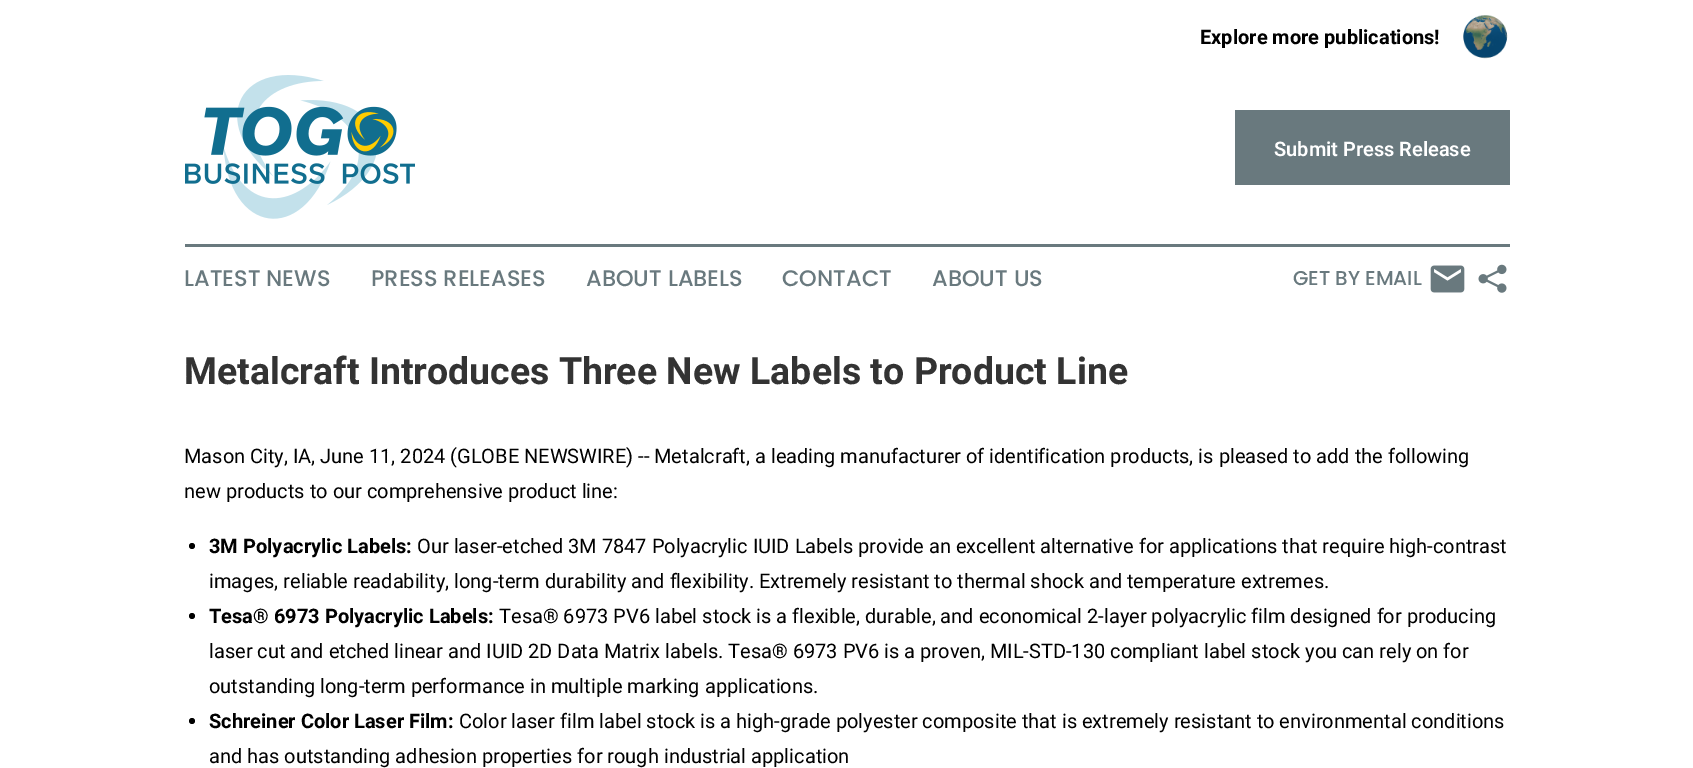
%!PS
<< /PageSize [1693 768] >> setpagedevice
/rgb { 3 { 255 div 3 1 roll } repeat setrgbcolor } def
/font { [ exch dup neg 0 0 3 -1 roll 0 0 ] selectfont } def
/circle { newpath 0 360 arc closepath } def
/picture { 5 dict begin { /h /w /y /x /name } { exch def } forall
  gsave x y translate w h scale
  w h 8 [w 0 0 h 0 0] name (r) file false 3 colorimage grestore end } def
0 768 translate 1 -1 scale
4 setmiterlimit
255 255 255 rgb
0 0 1693 768 rectfill
(img/1.rgb) 1463 15 45 44 picture
(img/2.rgb) 185 75 230 144 picture
105 121 126 rgb
1235 110 275 75 rectfill
185 244 1325 3 rectfill
(img/3.rgb) 1430 265 35 28 picture
(img/4.rgb) 1478 264 29 29 picture
0 0 0 rgb
192 546 3 circle fill
192 616 3 circle fill
192 721 3 circle fill
/Roboto-Bold 20 font
1200 44 moveto (Explore more publications!) show
/Roboto-SemiBold 20 font
255 255 255 rgb
1274 156 moveto (Submit Press Release) show
/Poppins-Medium 22.5 font
105 121 126 rgb
[
  [(LATEST NEWS) 184 286]
  [(PRESS RELEASES) 371 286]
  [(ABOUT LABELS) 586 286]
  [(CONTACT) 782 286]
  [(ABOUT US) 932 286]
] { aload pop moveto show } forall
/Poppins-Medium 20 font
1293 285 moveto (GET BY EMAIL) show
/Roboto-Bold 37.5 font
51 51 51 rgb
184 384 moveto (Metalcraft Introduces Three New Labels to Product Line) show
/Roboto-Regular 20 font
0 0 0 rgb
184 463 moveto (Mason City, IA, June 11, 2024 \(GLOBE NEWSWIRE\) -- Metalcraft, a leading manufacturer of identification products, is pleased to add the following) show
184 498 moveto (new products to our comprehensive product line:) show
/Roboto-Bold 20 font
209 553 moveto (3M Polyacrylic Labels:) show
/Roboto-Regular 20 font
417 553 moveto (Our laser-etched 3M 7847 Polyacrylic IUID Labels provide an excellent alternative for applications that require high-contrast) show
209 588 moveto (images, reliable readability, long-term durability and flexibility. Extremely resistant to thermal shock and temperature extremes.) show
/Roboto-Bold 20 font
209 623 moveto (Tesa® 6973 Polyacrylic Labels:) show
/Roboto-Regular 20 font
[
  [(Tesa® 6973 PV6 label stock is a flexible, durable, and economical 2-layer polyacrylic film designed for producing) 499 623]
  [(laser cut and etched linear and IUID 2D Data Matrix labels. Tesa® 6973 PV6 is a proven, MIL-STD-130 compliant label stock you can rely on for) 209 658]
  [(outstanding long-term performance in multiple marking applications.) 209 693]
] { aload pop moveto show } forall
/Roboto-Bold 20 font
209 728 moveto (Schreiner Color Laser Film:) show
/Roboto-Regular 20 font
459 728 moveto (Color laser film label stock is a high-grade polyester composite that is extremely resistant to environmental conditions) show
209 763 moveto (and has outstanding adhesion properties for rough industrial application) show
showpage
